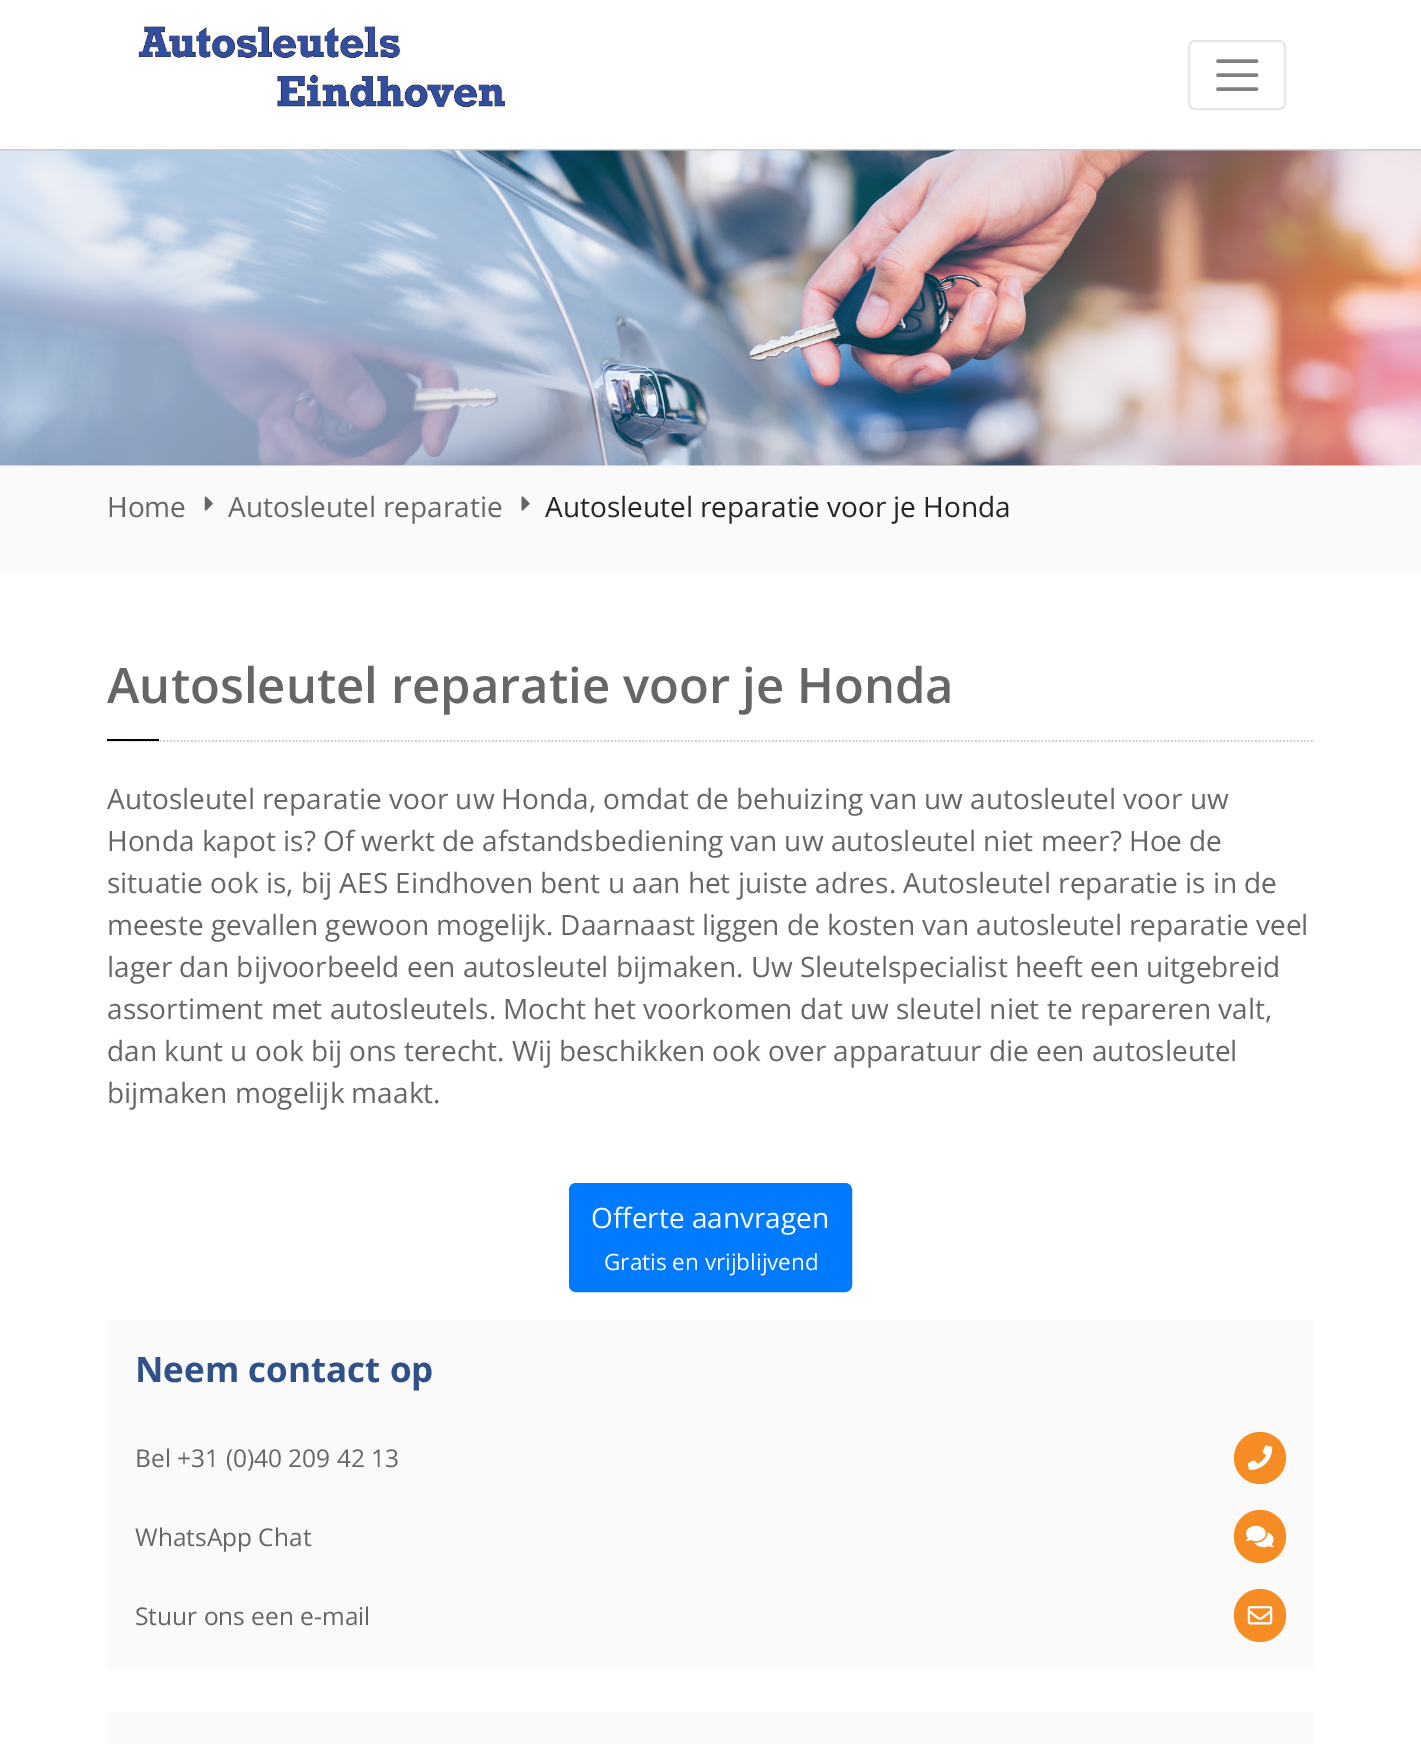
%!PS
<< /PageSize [1421 1744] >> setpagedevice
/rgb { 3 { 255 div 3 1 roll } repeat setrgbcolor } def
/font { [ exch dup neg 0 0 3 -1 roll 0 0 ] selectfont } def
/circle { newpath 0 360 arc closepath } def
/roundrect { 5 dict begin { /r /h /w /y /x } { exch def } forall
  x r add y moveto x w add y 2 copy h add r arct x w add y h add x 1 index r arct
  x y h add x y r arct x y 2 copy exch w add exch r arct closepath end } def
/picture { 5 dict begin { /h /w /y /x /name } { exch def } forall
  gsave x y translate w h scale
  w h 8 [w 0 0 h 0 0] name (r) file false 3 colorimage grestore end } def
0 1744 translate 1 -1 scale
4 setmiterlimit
255 255 255 rgb
0 0 1421 1744 rectfill
204 204 204 rgb
0 149 1421 2 rectfill
(img/1.rgb) 137 23 369 85 picture
230 230 230 rgb
2 setlinewidth
1189 41 96 68 6 roundrect stroke
128 128 128 rgb
3.5 setlinewidth
1 setlinecap
1218 61 moveto 1256.5 61 lineto 1218 75 moveto 1256.5 75 lineto 1218 89 moveto 1256.5 89 lineto stroke
(img/2.rgb) 0 150 1421 316 picture
250 250 250 rgb
0 466 1421 106 rectfill
(img/3.rgb) 204 496 9 15 picture
(img/4.rgb) 521 496 9 15 picture
204 204 204 rgb
1.8 setlinewidth
0 setlinecap
[1.75 1.75] 0 setdash
107 741 moveto 1314 741 lineto stroke
0 0 0 rgb
107 739 52 2 rectfill
0 123 255 rgb
570 1184 281 107 6 roundrect gsave fill grestore
2 setlinewidth
[] 0 setdash
stroke
250 250 250 rgb
107 1320 1207 350 rectfill
246 140 36 rgb
1260 1458 26 circle fill
(img/5.rgb) 1247 1445 26 25 picture
1234 1510 52 53 26 roundrect fill
(img/6.rgb) 1246 1525 28 23 picture
1234 1589 52 53 26 roundrect fill
(img/7.rgb) 1247 1606 26 19 picture
250 250 250 rgb
107 1712 1207 32 rectfill
/OpenSans-Regular 28 font
102 102 102 rgb
107 517 moveto (Home) show
228 517 moveto (Autosleutel reparatie) show
33 37 41 rgb
545 517 moveto (Autosleutel reparatie voor je Honda) show
/OpenSans-SemiBold 49 font
102 102 102 rgb
107 703 moveto (Autosleutel reparatie voor je Honda) show
/OpenSans-Regular 28 font
[
  [(Autosleutel reparatie voor uw Honda, omdat de behuizing van uw autosleutel voor uw) 107 809]
  [(Honda kapot is? Of werkt de afstandsbediening van uw autosleutel niet meer? Hoe de) 107 851]
  [(situatie ook is, bij AES Eindhoven bent u aan het juiste adres. Autosleutel reparatie is in de) 107 893]
  [(meeste gevallen gewoon mogelijk. Daarnaast liggen de kosten van autosleutel reparatie veel) 107 935]
  [(lager dan bijvoorbeeld een autosleutel bijmaken. Uw Sleutelspecialist heeft een uitgebreid) 107 977]
  [(assortiment met autosleutels. Mocht het voorkomen dat uw sleutel niet te repareren valt,) 107 1019]
  [(dan kunt u ook bij ons terecht. Wij beschikken ook over apparatuur die een autosleutel) 107 1061]
  [(bijmaken mogelijk maakt.) 107 1103]
] { aload pop moveto show } forall
255 255 255 rgb
591 1228 moveto (Offerte aanvragen) show
/OpenSans-Regular 22.5 font
604 1270 moveto (Gratis en vrijblijvend) show
/OpenSans-Bold 35 font
48 80 136 rgb
135 1382 moveto (Neem contact op) show
/OpenSans-Regular 24.5 font
102 102 102 rgb
[
  [(Bel +31 \(0\)40 209 42 13) 135 1467]
  [(WhatsApp Chat) 135 1546]
  [(Stuur ons een e-mail) 135 1625]
] { aload pop moveto show } forall
showpage
